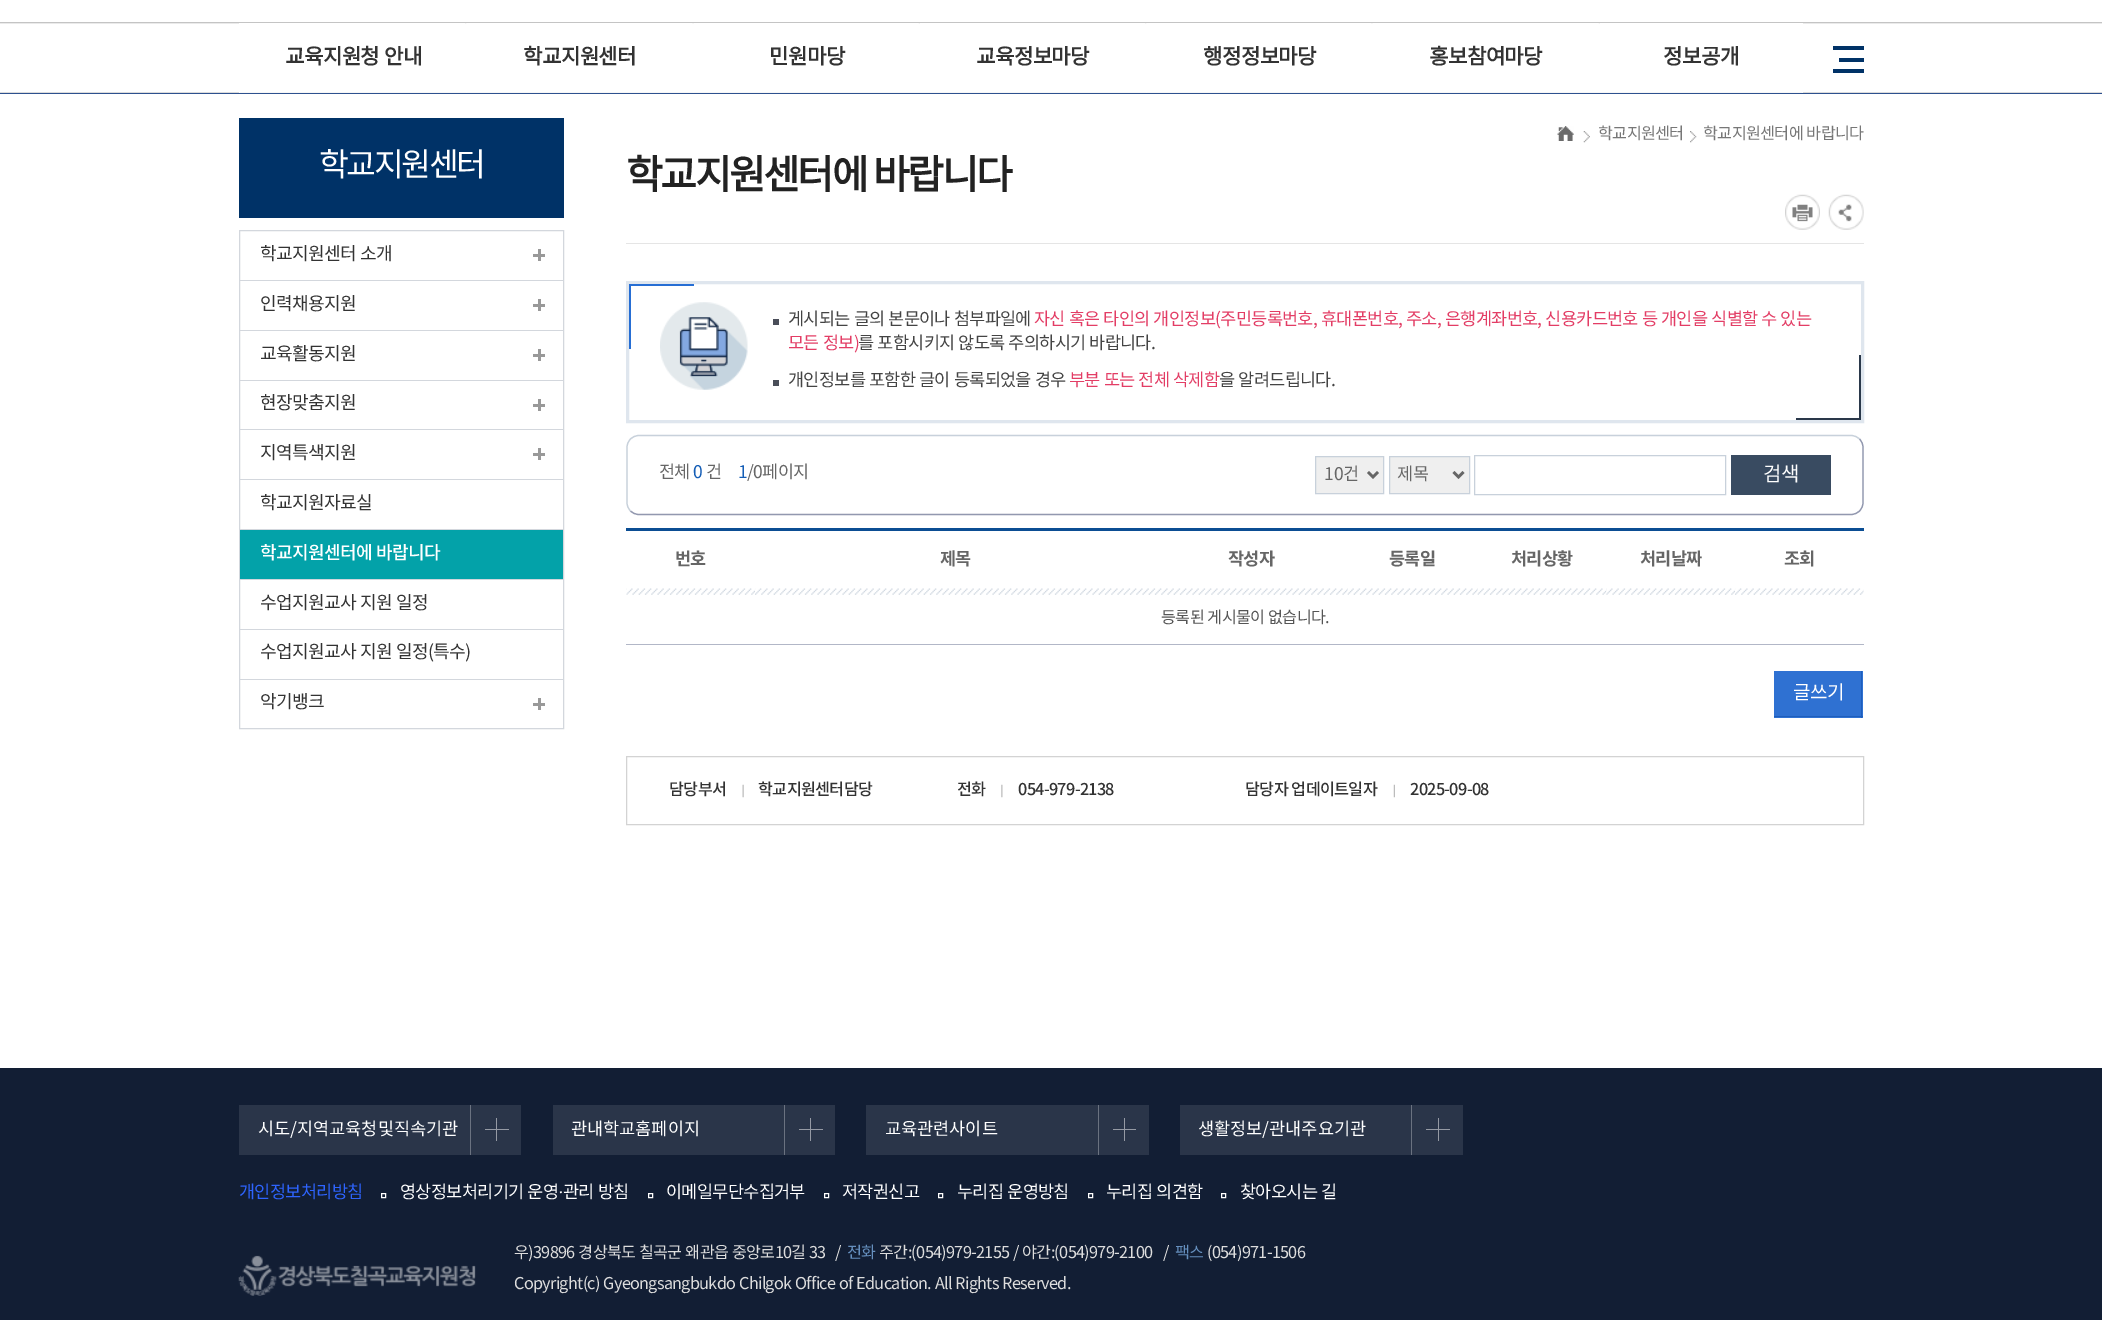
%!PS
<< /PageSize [2102 1320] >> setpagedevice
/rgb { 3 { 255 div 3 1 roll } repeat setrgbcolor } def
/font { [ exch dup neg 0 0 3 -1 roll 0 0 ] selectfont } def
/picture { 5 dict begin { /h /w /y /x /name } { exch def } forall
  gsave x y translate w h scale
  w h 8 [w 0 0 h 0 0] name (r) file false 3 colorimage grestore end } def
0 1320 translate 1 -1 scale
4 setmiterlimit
255 255 255 rgb
0 0 2102 1320 rectfill
(img/1.rgb) 0 22 2102 2 picture
(img/2.rgb) 0 23 2102 70 picture
45 81 143 rgb
0 93 2102 1 rectfill
255 255 255 rgb
239 23 1564 70 rectfill
(img/3.rgb) 465 23 2 1 picture
246 246 246 rgb
240 92 226 1 rectfill
(img/4.rgb) 692 23 2 1 picture
(img/5.rgb) 466 92 228 1 picture
(img/6.rgb) 918 23 2 1 picture
694 92 452 1 rectfill
(img/3.rgb) 1145 23 2 1 picture
(img/7.rgb) 1371 23 2 1 picture
(img/8.rgb) 1146 92 227 1 picture
(img/6.rgb) 1598 23 2 1 picture
(img/9.rgb) 1372 92 228 1 picture
(img/10.rgb) 1600 92 203 1 picture
[
  [1833 46 31 4 0 50 103]
  [1839 58 25 4 0 50 103]
  [1833 69 31 4 0 50 103]
  [239 118 325 100 0 50 103]
] { aload pop rgb rectfill } forall
211 215 221 rgb
239.5 230.5 324 498 rectstroke
[
  [533 254 12 3 153 153 153]
  [538 249 3 12 153 153 153]
  [240 280 323 1 211 215 221]
  [533 304 12 3 153 153 153]
  [538 299 3 12 153 153 153]
  [240 330 323 1 211 215 221]
  [533 354 12 3 153 153 153]
  [538 349 3 12 153 153 153]
  [240 380 323 1 211 215 221]
  [533 404 12 3 153 153 153]
  [538 399 3 12 153 153 153]
  [240 429 323 1 211 215 221]
  [533 453 12 3 153 153 153]
  [538 448 3 12 153 153 153]
  [240 479 323 1 211 215 221]
  [240 529 323 1 211 215 221]
  [240 530 323 49 3 162 169]
  [240 579 323 1 211 215 221]
  [240 629 323 1 211 215 221]
  [240 679 323 1 211 215 221]
  [533 703 12 3 153 153 153]
  [538 698 3 12 153 153 153]
  [626 243 1238 1 229 229 229]
] { aload pop rgb rectfill } forall
(img/11.rgb) 1557 126 17 15 picture
(img/12.rgb) 1583 131 7 12 picture
(img/13.rgb) 1690 131 7 12 picture
(img/14.rgb) 1785 194 35 36 picture
(img/15.rgb) 1828 194 36 36 picture
223 230 238 rgb
3 setlinewidth
627.5 282.5 1235 139 rectstroke
38 110 212 rgb
629 284 65 2 rectfill
629 284 2 65 rectfill
(img/16.rgb) 660 302 88 88 picture
[
  [773 319 6 6 74 78 89]
  [773 380 6 6 74 78 89]
  [1859 355 2 65 42 56 74]
  [1796 418 65 2 42 56 74]
] { aload pop rgb rectfill } forall
146 152 175 rgb
1.2 setlinewidth
1859.5 439 moveto 1862 441.5 1863 444.5 1863 447.5 curveto 1863 502.5 lineto 1863 505.5 1862 508.5 1859.5 511 curveto 1857.5 513 1854.5 514.5 1851 514.5 curveto 639 514.5 lineto 635.5 514.5 632.5 513 630.5 511 curveto stroke
200 209 219 rgb
630.5 511 moveto 628 508.5 627 505.5 627 502.5 curveto 627 447.5 lineto 627 444.5 628 441.5 630.5 439 curveto 632.5 437 635.5 435.5 639 435.5 curveto 1851 435.5 lineto 1854.5 435.5 1857.5 437 1859.5 439 curveto stroke
239 239 239 rgb
1315.5 456.5 moveto 1383.5 456.5 lineto 1383.5 493.5 lineto 1315.5 493.5 lineto closepath gsave fill grestore
200 209 219 rgb
1 setlinewidth
stroke
102 102 102 rgb
2.5 setlinewidth
1368 472 moveto 1373 477 lineto 1378 472 lineto stroke
239 239 239 rgb
1389.5 456.5 moveto 1469.5 456.5 lineto 1469.5 493.5 lineto 1389.5 493.5 lineto closepath gsave fill grestore
200 209 219 rgb
1 setlinewidth
stroke
102 102 102 rgb
2.5 setlinewidth
1453.5 472 moveto 1458.5 477 lineto 1463.5 472 lineto stroke
200 209 219 rgb
1 setlinewidth
1474.5 455.5 251 39 rectstroke
57 75 97 rgb
1731 455 100 40 rectfill
11 77 147 rgb
626 528 1238 3 rectfill
(img/17.rgb) 626 588 129 7 picture
(img/18.rgb) 755 588 400 7 picture
(img/19.rgb) 1155 588 193 7 picture
(img/20.rgb) 1347 588 131 7 picture
(img/21.rgb) 1477 588 130 7 picture
(img/22.rgb) 1606 588 129 7 picture
(img/23.rgb) 1735 588 129 7 picture
[
  [626 644 1238 1 178 183 199]
  [1774 671 89 47 47 113 210]
  [1861 671 1 47 30 94 188]
  [1774 716 89 1 30 94 188]
] { aload pop rgb rectfill } forall
211 211 211 rgb
626.5 756.5 1237 68 rectstroke
(img/24.rgb) 742 784 2 14 picture
(img/25.rgb) 1001 784 2 14 picture
(img/26.rgb) 1393 784 2 14 picture
[
  [0 1068 2102 252 18 30 52]
  [239 1105 282 50 42 53 73]
  [470 1105 1 50 106 114 128]
  [496 1118 1 23 149 154 164]
  [485 1129 24 1 149 154 164]
  [553 1105 282 50 42 53 73]
  [784 1105 1 50 106 114 128]
  [810 1118 1 23 149 154 164]
  [799 1129 24 1 149 154 164]
  [866 1105 283 50 42 53 73]
  [1098 1105 1 50 106 114 128]
  [1124 1118 1 23 149 154 164]
  [1113 1129 23 1 149 154 164]
  [1180 1105 283 50 42 53 73]
  [1411 1105 1 50 106 114 128]
  [1438 1118 1 23 149 154 164]
  [1426 1129 24 1 149 154 164]
] { aload pop rgb rectfill } forall
255 255 255 rgb
381.5 1193.5 4 4 rectstroke
648.5 1193.5 4 4 rectstroke
824.5 1193.5 4 4 rectstroke
938.5 1193.5 4 4 rectstroke
1088.5 1193.5 4 4 rectstroke
1221.5 1193.5 4 4 rectstroke
(img/27.rgb) 238 1255 238 41 picture
/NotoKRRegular-Bold 21.25 font
51 51 51 rgb
285 64 moveto 0.6 0 32 -0.68 0 (교육지원청 안내) awidthshow
523 64 moveto -0.68 0 (학교지원센터) ashow
769 64 moveto -0.68 0 (민원마당) ashow
976 64 moveto -0.68 0 (교육정보마당) ashow
1203 64 moveto -0.68 0 (행정정보마당) ashow
1429 64 moveto -0.68 0 (홍보참여마당) ashow
1663 64 moveto -0.68 0 (정보공개) ashow
/NotoKRRegular-Regular 32.5 font
255 255 255 rgb
319 176 moveto -2.5 0 (학교지원센터) ashow
/NotoKRRegular-Regular 18.1 font
51 51 51 rgb
260 260 moveto 0.6 0 32 -0.68 0 (학교지원센터 소개) awidthshow
260 310 moveto -0.68 0 (인력채용지원) ashow
260 360 moveto -0.68 0 (교육활동지원) ashow
260 409 moveto -0.68 0 (현장맞춤지원) ashow
260 459 moveto -0.68 0 (지역특색지원) ashow
260 509 moveto -0.68 0 (학교지원자료실) ashow
/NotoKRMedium-Medium 18.1 font
255 255 255 rgb
260 559 moveto 0.6 0 32 -0.68 0 (학교지원센터에 바랍니다) awidthshow
/NotoKRRegular-Regular 18.1 font
51 51 51 rgb
260 609 moveto 0.6 0 32 -0.68 0 (수업지원교사 지원 일정) awidthshow
260 658 moveto 0.6 0 32 -0.68 0 (수업지원교사 지원 일정\(특수\)) awidthshow
260 708 moveto -0.68 0 (악기뱅크) ashow
/NotoKRRegular-Regular 16.25 font
119 119 119 rgb
1598 139 moveto -0.68 0 (학교지원센터) ashow
1703 139 moveto 0.6 0 32 -0.68 0 (학교지원센터에 바랍니다) awidthshow
/NotoKRRegular-Bold 40 font
34 34 34 rgb
626 189 moveto 0.6 0 32 -2.5 0 (학교지원센터에 바랍니다) awidthshow
/NotoKRRegular-Regular 17.5 font
68 68 68 rgb
788 325 moveto 0.6 0 32 -0.68 0 (게시되는 글의 본문이나 첨부파일에) awidthshow
227 61 101 rgb
1034 325 moveto 0.6 0 32 -0.68 0 (자신 혹은 타인의 개인정보\(주민등록번호, 휴대폰번호, 주소, 은행계좌번호, 신용카드번호 등 개인을 식별할 수 있는) awidthshow
788 349 moveto 0.6 0 32 -0.68 0 (모든 정보\)) awidthshow
68 68 68 rgb
858 349 moveto 0.6 0 32 -0.68 0 (를 포함시키지 않도록 주의하시기 바랍니다.) awidthshow
788 386 moveto 0.6 0 32 -0.68 0 (개인정보를 포함한 글이 등록되었을 경우) awidthshow
227 61 101 rgb
1069 386 moveto 0.6 0 32 -0.68 0 (부분 또는 전체 삭제함) awidthshow
68 68 68 rgb
1219 386 moveto 0.6 0 32 -0.68 0 (을 알려드립니다.) awidthshow
102 102 102 rgb
659 478 moveto -0.68 0 (전체) ashow
21 94 182 rgb
693 478 moveto -0.68 0 (0) ashow
102 102 102 rgb
706 478 moveto -0.68 0 (건) ashow
21 94 182 rgb
738 478 moveto -0.68 0 (1) ashow
102 102 102 rgb
747 478 moveto -0.68 0 (/0페이지) ashow
1324 480 moveto (10건) show
1397 480 moveto (제목) show
/NotoKRRegular-Regular 20 font
255 255 255 rgb
1763 481 moveto (검색) show
/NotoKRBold-Bold 17.5 font
102 102 102 rgb
675 565 moveto -0.68 0 (번호) ashow
940 565 moveto -0.68 0 (제목) ashow
1228 565 moveto -0.68 0 (작성자) ashow
1389 565 moveto -0.68 0 (등록일) ashow
1511 565 moveto -0.68 0 (처리상황) ashow
1640 565 moveto -0.68 0 (처리날짜) ashow
1784 565 moveto -0.68 0 (조회) ashow
/NotoKRRegular-Regular 16.25 font
85 85 85 rgb
1161 623 moveto 0.6 0 32 -0.68 0 (등록된 게시물이 없습니다.) awidthshow
/NotoKRRegular-Regular 19 font
255 255 255 rgb
1793 699 moveto -0.68 0 (글쓰기) ashow
/NotoKRMedium-Medium 16.25 font
51 51 51 rgb
669 795 moveto -0.68 0 (담당부서) ashow
758 795 moveto -0.68 0 (학교지원센터담당) ashow
957 795 moveto -0.68 0 (전화) ashow
1018 795 moveto -0.68 0 (054-979-2138) ashow
1245 795 moveto 0.6 0 32 -0.68 0 (담당자 업데이트일자) awidthshow
1410 795 moveto -0.68 0 (2025-09-08) ashow
/NotoKRRegular-Regular 17.5 font
255 255 255 rgb
[
  [(시도/지역교육청및직속기관) 258 1135]
  [(관내학교홈페이지) 571 1135]
  [(교육관련사이트) 885 1135]
  [(생활정보/관내주요기관) 1198 1135]
] { aload pop moveto show } forall
46 100 254 rgb
239 1198 moveto -0.68 0 (개인정보처리방침) ashow
255 255 255 rgb
400 1198 moveto 0.6 0 32 -0.68 0 (영상정보처리기기 운영) awidthshow
/LiberationSerif-Regular 17.5 font
558 1198 moveto -0.68 0 (·) ashow
/NotoKRRegular-Regular 17.5 font
563 1198 moveto 0.6 0 32 -0.68 0 (관리 방침) awidthshow
666 1198 moveto -0.68 0 (이메일무단수집거부) ashow
842 1198 moveto -0.68 0 (저작권신고) ashow
957 1198 moveto 0.6 0 32 -0.68 0 (누리집 운영방침) awidthshow
1106 1198 moveto 0.6 0 32 -0.68 0 (누리집 의견함) awidthshow
1240 1198 moveto 0.6 0 32 -0.68 0 (찾아오시는 길) awidthshow
/NotoKRRegular-Regular 16.25 font
221 221 221 rgb
514 1258 moveto 0.6 0 32 -0.68 0 (우\)39896 경상북도 칠곡군 왜관읍 중앙로10길 33) awidthshow
835 1258 moveto -0.68 0 (/) ashow
102 144 191 rgb
847 1258 moveto -0.68 0 (전화) ashow
221 221 221 rgb
879 1258 moveto 0.6 0 32 -0.68 0 (주간:\(054\)979-2155 / 야간:\(054\)979-2100) awidthshow
1163 1258 moveto -0.68 0 (/) ashow
102 144 191 rgb
1175 1258 moveto -0.68 0 (팩스) ashow
221 221 221 rgb
1207 1258 moveto -0.68 0 (\(054\)971-1506) ashow
514 1289 moveto 0.6 0 32 -0.68 0 (Copyright\(c\) Gyeongsangbukdo Chilgok Office of Education. All Rights Reserved.) awidthshow
showpage
